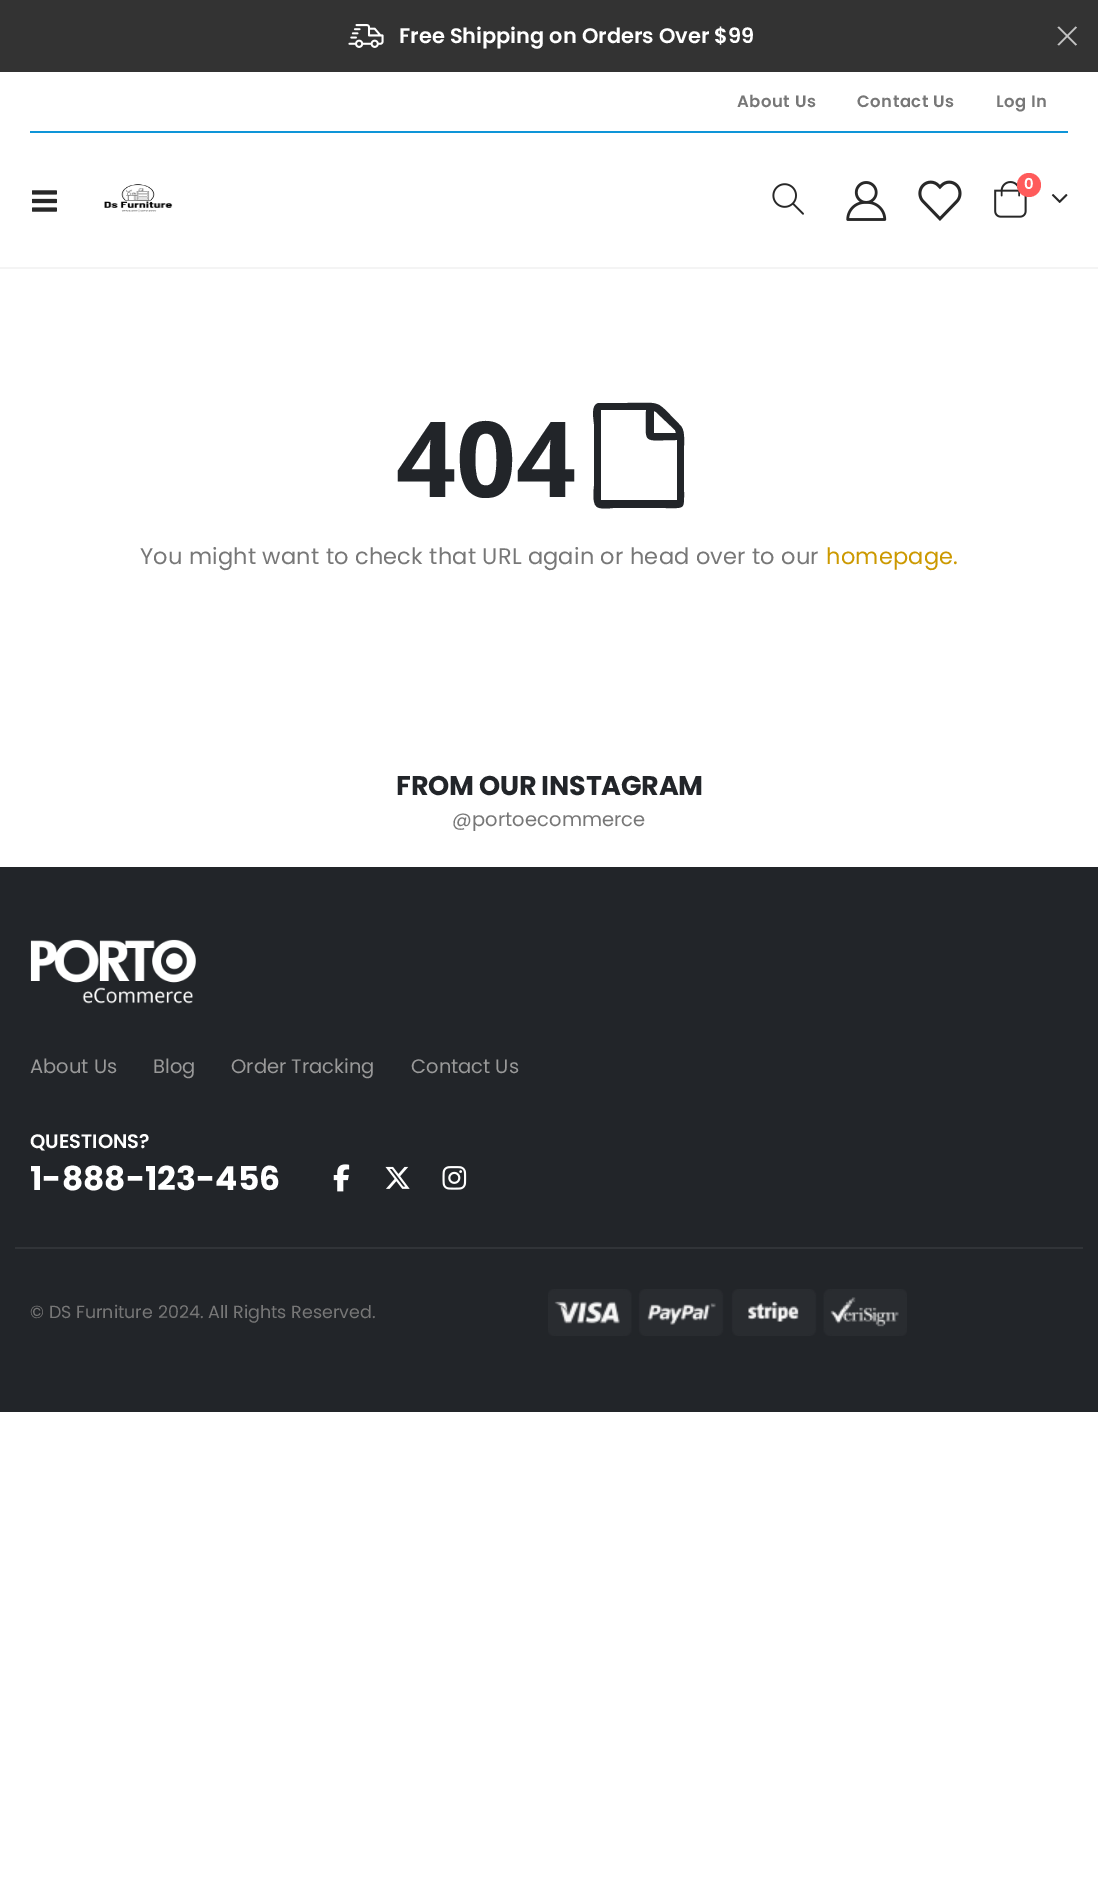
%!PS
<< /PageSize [1098 1894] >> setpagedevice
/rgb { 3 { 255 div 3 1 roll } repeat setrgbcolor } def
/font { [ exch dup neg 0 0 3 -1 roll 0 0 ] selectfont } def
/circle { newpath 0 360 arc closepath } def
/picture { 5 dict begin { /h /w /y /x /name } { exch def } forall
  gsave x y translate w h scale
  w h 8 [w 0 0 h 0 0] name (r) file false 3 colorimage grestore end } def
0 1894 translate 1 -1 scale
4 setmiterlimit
255 255 255 rgb
0 0 1098 1894 rectfill
51 51 51 rgb
0 0 1098 72 rectfill
(img/1.rgb) 348 24 36 24 picture
194 194 194 rgb
1059 26.5 moveto 1077 44.5 lineto 1075.5 45.5 lineto 1057.5 27.5 lineto closepath fill
1075.5 26.5 moveto 1077 27.5 lineto 1059 45.5 lineto 1057.5 44.5 lineto closepath fill
244 244 244 rgb
0 267 1098 2 rectfill
14 149 216 rgb
30 131 1038 2 rectfill
(img/2.rgb) 32 190 25 22 picture
(img/3.rgb) 104 184 69 29 picture
(img/4.rgb) 772 183 32 32 picture
(img/5.rgb) 846 181 41 40 picture
(img/6.rgb) 918 180 44 41 picture
(img/7.rgb) 994 181 33 37 picture
255 91 91 rgb
1029 185 12 circle fill
(img/8.rgb) 1051 194 17 9 picture
34 37 41 rgb
680 425 moveto 685 430 684 439 684 446 curveto 684 491 lineto 684 510 685 508 665 508 curveto 613 508 lineto 611 508 599 510 596 506 curveto 592 502 594 488 594 486 curveto 594 424 lineto 594 421 590 404 599 403 curveto 626 403 lineto 664 403 654 399 680 425 curveto closepath 654 411 moveto 654 433 lineto 676 433 lineto 675 430 lineto 656 412 lineto closepath 677 500 moveto 677 440 lineto 641 440 646 446 646 410 curveto 601 410 lineto 601 500 lineto closepath fill
0 867 1098 545 rectfill
(img/9.rgb) 30 939 166 65 picture
(img/10.rgb) 333 1164 17 28 picture
(img/11.rgb) 385 1166 25 23 picture
(img/12.rgb) 442 1166 25 24 picture
49 52 56 rgb
15 1247 1068 2 rectfill
(img/13.rgb) 548 1289 359 47 picture
/Poppins-SemiBold 21 font
255 255 255 rgb
399 43 moveto (Free Shipping on Orders Over $99) show
/Poppins-SemiBold 16.5 font
119 119 119 rgb
737 107 moveto 0.5 0 (About Us) ashow
857 107 moveto 0.5 0 (Contact Us) ashow
996 107 moveto 0.5 0 (Log In) ashow
/Poppins-SemiBold 15 font
255 255 255 rgb
1024 189 moveto (0) show
/OpenSans-Bold 105 font
34 37 41 rgb
396 497 moveto (404) show
/Poppins-Regular 22.5 font
119 119 119 rgb
140 564 moveto 0.2 0 (You might want to check that URL again or head over to our) ashow
204 153 0 rgb
826 564 moveto 0.2 0 (homepage.) ashow
/Poppins-Bold 27 font
34 37 41 rgb
396 795 moveto -0.25 0 (FROM OUR INSTAGRAM) ashow
/Poppins-Regular 19.5 font
119 119 119 rgb
452 826 moveto 0.1 0 (@portoecommerce) ashow
153 153 153 rgb
[
  [(About Us) 30 1073]
  [(Blog) 153 1073]
  [(Order Tracking) 231 1073]
  [(Contact Us) 411 1073]
] { aload pop moveto show } forall
/Poppins-SemiBold 19.5 font
255 255 255 rgb
30 1148 moveto (QUESTIONS?) show
/Poppins-Bold 33 font
30 1190 moveto (1-888-123-456) show
/Poppins-Regular 17.5 font
119 119 119 rgb
30 1318 moveto (© DS Furniture 2024. All Rights Reserved.) show
showpage
